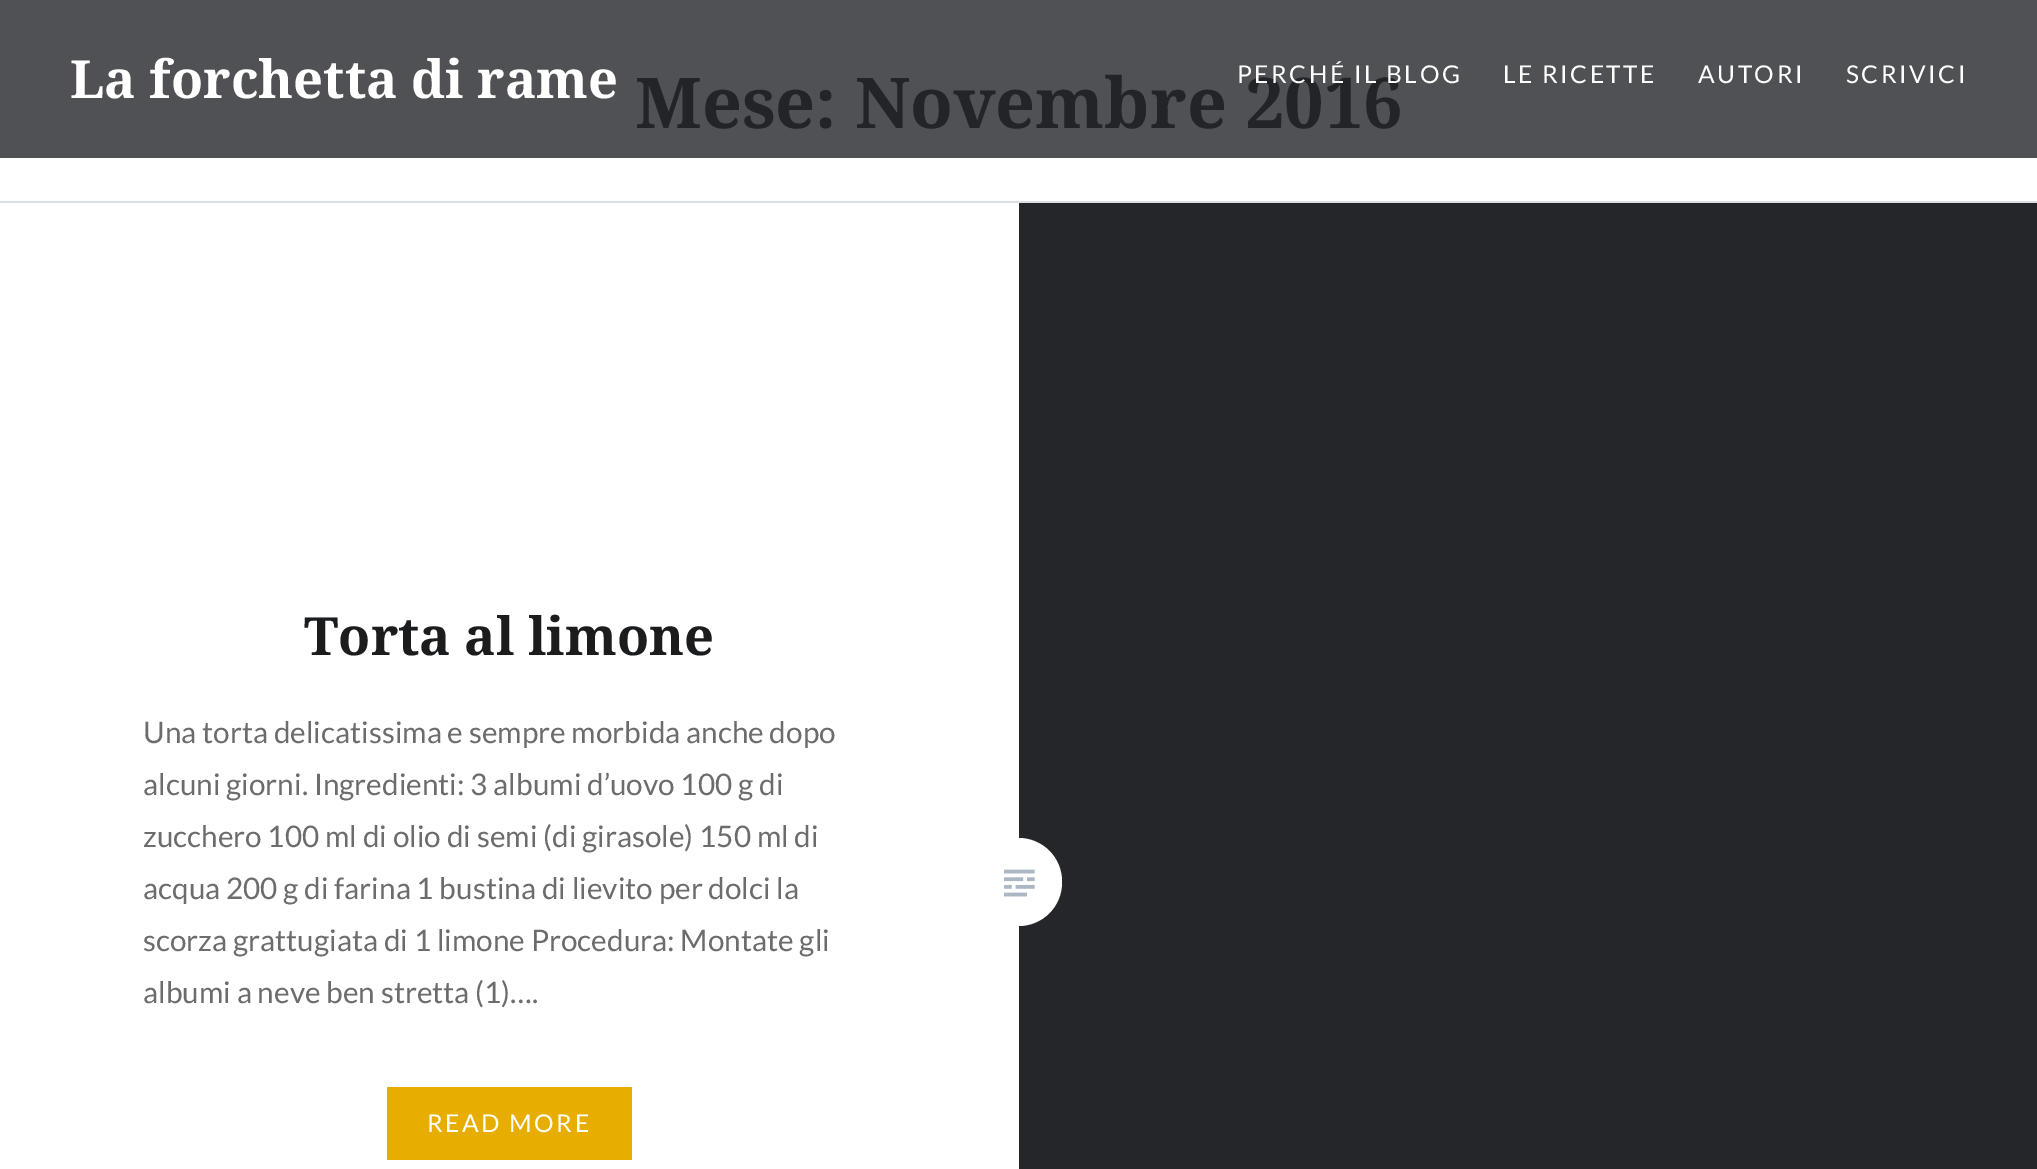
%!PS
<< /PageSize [2037 1169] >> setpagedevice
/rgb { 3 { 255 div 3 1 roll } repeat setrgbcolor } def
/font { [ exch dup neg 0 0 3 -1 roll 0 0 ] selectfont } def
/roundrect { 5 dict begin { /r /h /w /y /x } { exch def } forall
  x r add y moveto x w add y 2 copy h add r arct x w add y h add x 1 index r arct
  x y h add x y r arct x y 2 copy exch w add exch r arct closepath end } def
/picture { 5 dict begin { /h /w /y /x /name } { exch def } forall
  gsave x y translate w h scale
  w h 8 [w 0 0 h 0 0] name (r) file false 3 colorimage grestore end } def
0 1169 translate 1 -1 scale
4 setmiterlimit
255 255 255 rgb
0 0 2037 1169 rectfill
[
  [0 0 2037 158 80 81 84]
  [0 201 2037 2 217 223 229]
  [387 1087 245 73 231 174 1]
  [1019 203 1018 966 36 38 41]
] { aload pop rgb rectfill } forall
255 255 255 rgb
975 838 87 88 43.5 roundrect fill
(img/1.rgb) 1004 869 31 28 picture
/NotoSerif-Bold 52.5 font
70 98 moveto (La forchetta di rame) show
/Lato-Regular 24.5 font
1503 83 moveto 2.5 0 (LE RICETTE) ashow
1698 83 moveto 2.5 0 (AUTORI) ashow
1846 83 moveto 2.5 0 (SCRIVICI) ashow
/NotoSerif-Bold 70 font
34 36 39 rgb
635 128 moveto (Mese: Novembre 2016) show
/Lato-Regular 24.5 font
255 255 255 rgb
1237 83 moveto 2.5 0 (PERCHÉ IL BLOG) ashow
/NotoSerif-Bold 52.5 font
26 28 30 rgb
304 655 moveto (Torta al limone) show
/Lato-Regular 29.75 font
106 108 110 rgb
[
  [(Una torta delicatissima e sempre morbida anche dopo) 143 743]
  [(alcuni giorni. Ingredienti: 3 albumi d’uovo 100 g di) 143 795]
  [(zucchero 100 ml di olio di semi \(di girasole\) 150 ml di) 143 847]
  [(acqua 200 g di farina 1 bustina di lievito per dolci la) 143 899]
  [(scorza grattugiata di 1 limone Procedura: Montate gli) 143 951]
  [(albumi a neve ben stretta \(1\)….) 143 1003]
] { aload pop moveto show } forall
/Lato-Regular 24.5 font
255 255 255 rgb
427 1132 moveto 2.5 0 (READ MORE) ashow
showpage
